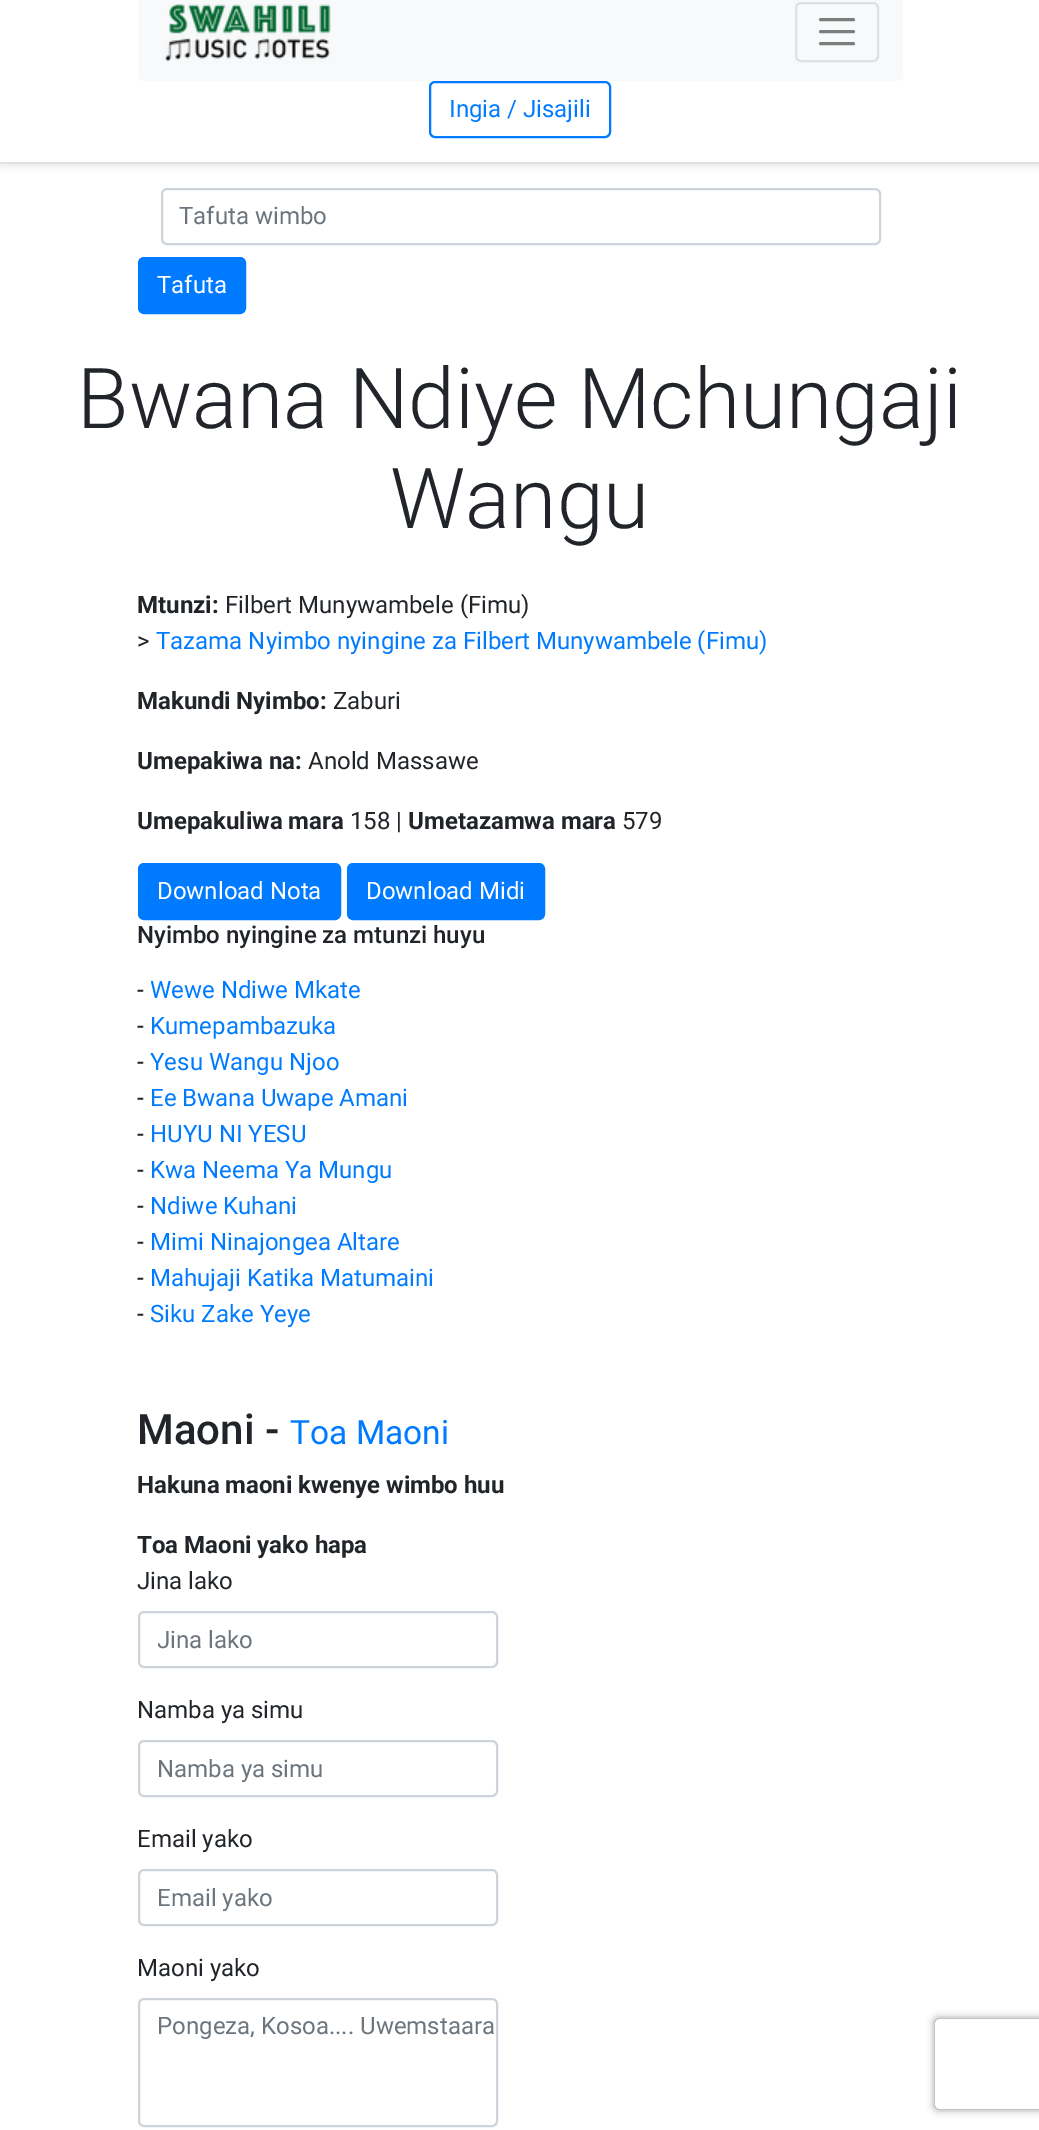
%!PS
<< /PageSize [1039 2130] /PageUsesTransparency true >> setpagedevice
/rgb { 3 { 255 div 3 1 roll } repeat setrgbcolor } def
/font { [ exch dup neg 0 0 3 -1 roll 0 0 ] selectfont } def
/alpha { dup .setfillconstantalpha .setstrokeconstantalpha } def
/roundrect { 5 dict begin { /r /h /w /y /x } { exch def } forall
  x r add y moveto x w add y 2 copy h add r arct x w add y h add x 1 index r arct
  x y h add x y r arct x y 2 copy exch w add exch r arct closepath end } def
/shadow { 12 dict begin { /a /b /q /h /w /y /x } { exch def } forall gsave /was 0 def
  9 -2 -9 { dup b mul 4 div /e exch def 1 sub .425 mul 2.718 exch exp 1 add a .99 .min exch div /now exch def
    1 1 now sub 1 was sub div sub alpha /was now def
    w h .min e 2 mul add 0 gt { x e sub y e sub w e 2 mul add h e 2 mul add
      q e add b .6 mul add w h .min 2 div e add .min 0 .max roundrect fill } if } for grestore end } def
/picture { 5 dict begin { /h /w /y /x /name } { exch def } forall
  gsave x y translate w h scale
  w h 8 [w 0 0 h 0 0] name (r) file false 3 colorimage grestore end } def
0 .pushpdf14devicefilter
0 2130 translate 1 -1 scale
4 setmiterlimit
255 255 255 rgb
0 0 1039 2130 rectfill
0 0 0 rgb
0 -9 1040 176 0 3 0.07 shadow
255 255 255 rgb
0 0 1039 162 rectfill
222 226 230 rgb
0 162 1039 2 rectfill
248 249 250 rgb
138 -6 765 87 6 roundrect fill
(img/1.rgb) 164 4 167 58 picture
223 224 225 rgb
2 setlinewidth
796 3 82 58 5 roundrect stroke
124 125 125 rgb
3 setlinewidth
1 setlinecap
820.5 19.5 moveto 853.5 19.5 lineto 820.5 31.5 moveto 853.5 31.5 lineto 820.5 43.5 moveto 853.5 43.5 lineto stroke
0 123 255 rgb
2 setlinewidth
0 setlinecap
430 82 180 55 5 roundrect stroke
206 212 218 rgb
162 189 718 55 5 roundrect stroke
0 123 255 rgb
139 258 106 55 5 roundrect gsave fill grestore
stroke
139 864 201 55 5 roundrect gsave fill grestore
stroke
348 864 196 55 5 roundrect gsave fill grestore
stroke
206 212 218 rgb
139 1612 358 55 5 roundrect stroke
139 1741 358 55 5 roundrect stroke
139 1870 358 55 5 roundrect stroke
139 1999 358 127 5 roundrect stroke
gsave
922 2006 moveto 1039 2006 lineto 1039 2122 lineto 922 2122 lineto closepath 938 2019 moveto 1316 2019 lineto 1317.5 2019 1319 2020.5 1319 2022 curveto 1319 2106 lineto 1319 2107.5 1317.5 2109 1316 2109 curveto 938 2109 lineto 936.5 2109 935 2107.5 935 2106 curveto 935 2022 lineto 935 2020.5 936.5 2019 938 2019 curveto closepath eoclip newpath
128 128 128 rgb
935 2019 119 90 3 4 1 shadow
grestore
/Roboto-Regular 24 font
0 123 255 rgb
449 117 moveto (Ingia / Jisajili) show
108 117 125 rgb
179 224 moveto (Tafuta wimbo) show
255 255 255 rgb
157 293 moveto (Tafuta) show
/Roboto-Light 84 font
33 37 41 rgb
77 428 moveto (Bwana Ndiye Mchungaji) show
390 528 moveto (Wangu) show
/Roboto-Bold 24 font
137 613 moveto (Mtunzi:) show
/Roboto-Regular 24 font
225 613 moveto (Filbert Munywambele \(Fimu\)) show
137 649 moveto (>) show
0 123 255 rgb
156 649 moveto (Tazama Nyimbo nyingine za Filbert Munywambele \(Fimu\)) show
/Roboto-Bold 24 font
33 37 41 rgb
137 709 moveto (Makundi Nyimbo:) show
/Roboto-Regular 24 font
333 709 moveto (Zaburi) show
/Roboto-Bold 24 font
137 769 moveto (Umepakiwa na:) show
/Roboto-Regular 24 font
308 769 moveto (Anold Massawe) show
/Roboto-Bold 24 font
137 829 moveto (Umepakuliwa mara) show
/Roboto-Regular 24 font
350 829 moveto (158 |) show
/Roboto-Bold 24 font
408 829 moveto (Umetazamwa mara) show
/Roboto-Regular 24 font
622 829 moveto (579) show
255 255 255 rgb
157 899 moveto (Download Nota) show
366 899 moveto (Download Midi) show
/Roboto-Medium 24 font
33 37 41 rgb
137 943 moveto (Nyimbo nyingine za mtunzi huyu) show
/Roboto-Regular 24 font
137 998 moveto (-) show
0 123 255 rgb
150 998 moveto (Wewe Ndiwe Mkate) show
33 37 41 rgb
137 1034 moveto (-) show
0 123 255 rgb
150 1034 moveto (Kumepambazuka) show
33 37 41 rgb
137 1070 moveto (-) show
0 123 255 rgb
150 1070 moveto (Yesu Wangu Njoo) show
33 37 41 rgb
137 1106 moveto (-) show
0 123 255 rgb
150 1106 moveto (Ee Bwana Uwape Amani) show
33 37 41 rgb
137 1142 moveto (-) show
0 123 255 rgb
150 1142 moveto (HUYU NI YESU) show
33 37 41 rgb
137 1178 moveto (-) show
0 123 255 rgb
150 1178 moveto (Kwa Neema Ya Mungu) show
33 37 41 rgb
137 1214 moveto (-) show
0 123 255 rgb
150 1214 moveto (Ndiwe Kuhani) show
33 37 41 rgb
137 1250 moveto (-) show
0 123 255 rgb
150 1250 moveto (Mimi Ninajongea Altare) show
33 37 41 rgb
137 1286 moveto (-) show
0 123 255 rgb
150 1286 moveto (Mahujaji Katika Matumaini) show
33 37 41 rgb
137 1322 moveto (-) show
0 123 255 rgb
150 1322 moveto (Siku Zake Yeye) show
/Roboto-Medium 42 font
33 37 41 rgb
137 1444 moveto (Maoni -) show
/Roboto-Regular 33.5 font
0 123 255 rgb
290 1444 moveto (Toa Maoni) show
/Roboto-Bold 24 font
33 37 41 rgb
137 1493 moveto (Hakuna maoni kwenye wimbo huu) show
137 1553 moveto (Toa Maoni yako hapa) show
/Roboto-Regular 24 font
137 1589 moveto (Jina lako) show
gsave
158 1626 321 29 rectclip
108 117 125 rgb
157 1648 moveto (Jina lako) show
grestore
137 1718 moveto (Namba ya simu) show
108 117 125 rgb
157 1777 moveto (Namba ya simu) show
33 37 41 rgb
137 1847 moveto (Email yako) show
108 117 125 rgb
157 1906 moveto (Email yako) show
33 37 41 rgb
137 1976 moveto (Maoni yako) show
108 117 125 rgb
157 2034 moveto (Pongeza, Kosoa.... Uwemstaara) show
.poppdf14devicefilter showpage
